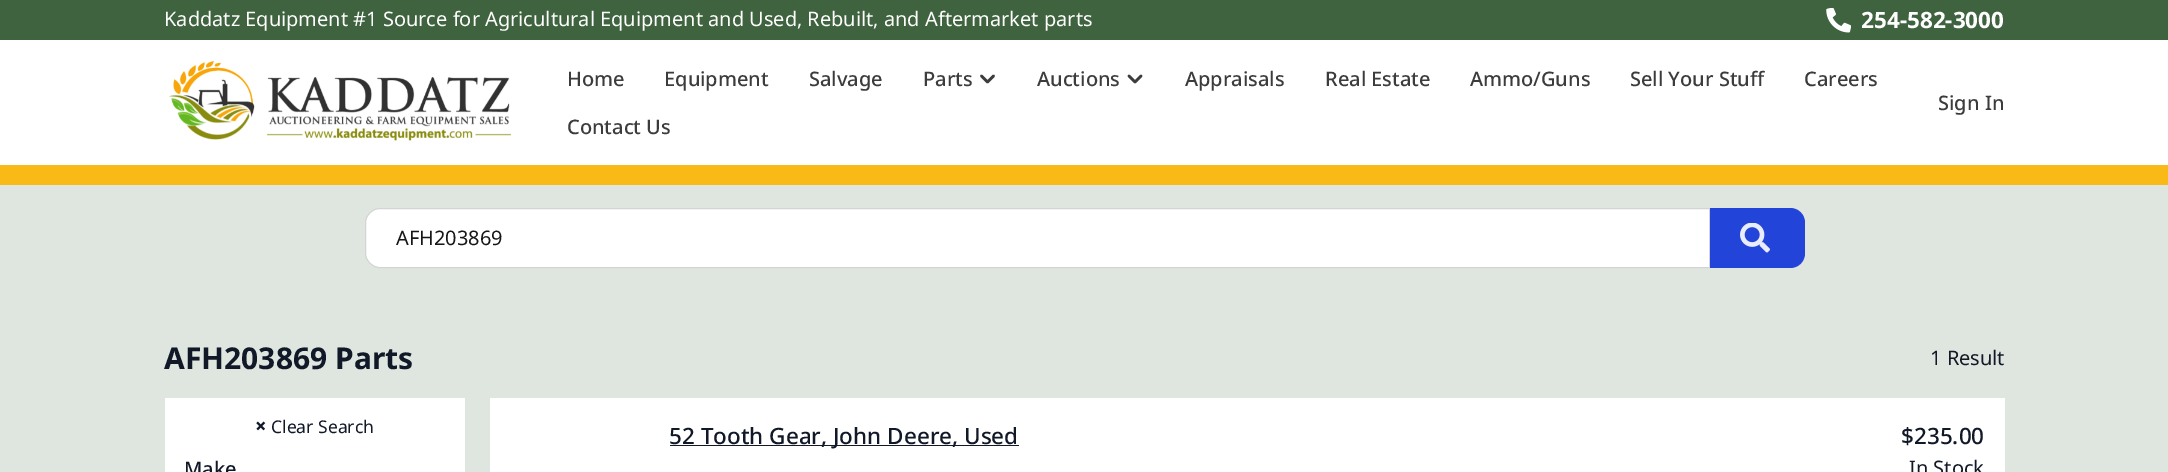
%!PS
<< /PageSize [2168 472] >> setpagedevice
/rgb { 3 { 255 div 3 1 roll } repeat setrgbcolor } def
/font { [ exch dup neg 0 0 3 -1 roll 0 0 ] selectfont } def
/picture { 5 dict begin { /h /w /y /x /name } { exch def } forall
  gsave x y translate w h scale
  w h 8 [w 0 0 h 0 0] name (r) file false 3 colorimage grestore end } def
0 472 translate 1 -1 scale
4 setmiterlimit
223 230 223 rgb
0 0 2168 472 rectfill
62 99 62 rgb
0 0 2168 40 rectfill
(img/1.rgb) 1826 8 25 25 picture
255 255 255 rgb
0 40 2168 125 rectfill
(img/2.rgb) 169 61 343 80 picture
60 60 60 rgb
2.5 setlinewidth
1 setlinecap
1 setlinejoin
993.5 76 moveto 987.5 82 lineto 981.5 76 lineto stroke
1141 76 moveto 1135 82 lineto 1129 76 lineto stroke
249 185 22 rgb
0 165 2168 20 rectfill
255 255 255 rgb
380 208.5 moveto 1709.5 208.5 lineto 1709.5 267.5 lineto 380 267.5 lineto 372 267.5 365.5 261 365.5 253 curveto 365.5 223 lineto 365.5 215 372 208.5 380 208.5 curveto closepath gsave fill grestore
212 212 212 rgb
1 setlinewidth
0 setlinecap
0 setlinejoin
stroke
34 68 216 rgb
1710 208 moveto 1790 208 lineto 1798.5 208 1805 214.5 1805 223 curveto 1805 253 lineto 1805 261.5 1798.5 268 1790 268 curveto 1710 268 lineto closepath fill
(img/3.rgb) 1740 223 30 30 picture
[
  [165 398 300 74 255 255 255]
  [490 398 1515 74 255 255 255]
  [670 445 349 1 17 24 39]
] { aload pop rgb rectfill } forall
/NotoSans-Regular 20 font
255 255 255 rgb
164 26 moveto (Kaddatz Equipment #1 Source for Agricultural Equipment and Used, Rebuilt, and Aftermarket parts) show
/NotoSans-Bold 22.5 font
1861 28 moveto (254-582-3000) show
/NotoSans-Medium 20 font
60 60 60 rgb
[
  [(Home) 567 86]
  [(Equipment) 664 86]
  [(Salvage) 809 86]
  [(Parts) 923 86]
  [(Auctions) 1037 86]
  [(Appraisals) 1185 86]
  [(Real Estate) 1325 86]
  [(Ammo/Guns) 1470 86]
  [(Sell Your Stuff) 1630 86]
  [(Careers) 1804 86]
  [(Contact Us) 567 134]
  [(Sign In) 1938 110]
] { aload pop moveto show } forall
/NotoSans-Regular 20 font
23 23 23 rgb
396 245 moveto (AFH203869) show
/NotoSans-Bold 30 font
17 24 39 rgb
164 369 moveto (AFH203869 Parts) show
/NotoSans-Regular 20 font
1930 365 moveto (1 Result) show
/NotoSans-ExtraBold 20 font
255 433 moveto (×) show
/NotoSans-Regular 17.5 font
271 433 moveto (Clear Search) show
/NotoSans-Medium 20 font
184 476 moveto (Make) show
/NotoSans-Medium 22.5 font
669 444 moveto (52 Tooth Gear, John Deere, Used) show
1901 444 moveto ($235.00) show
/NotoSans-Regular 20 font
1909 475 moveto (In Stock) show
showpage
